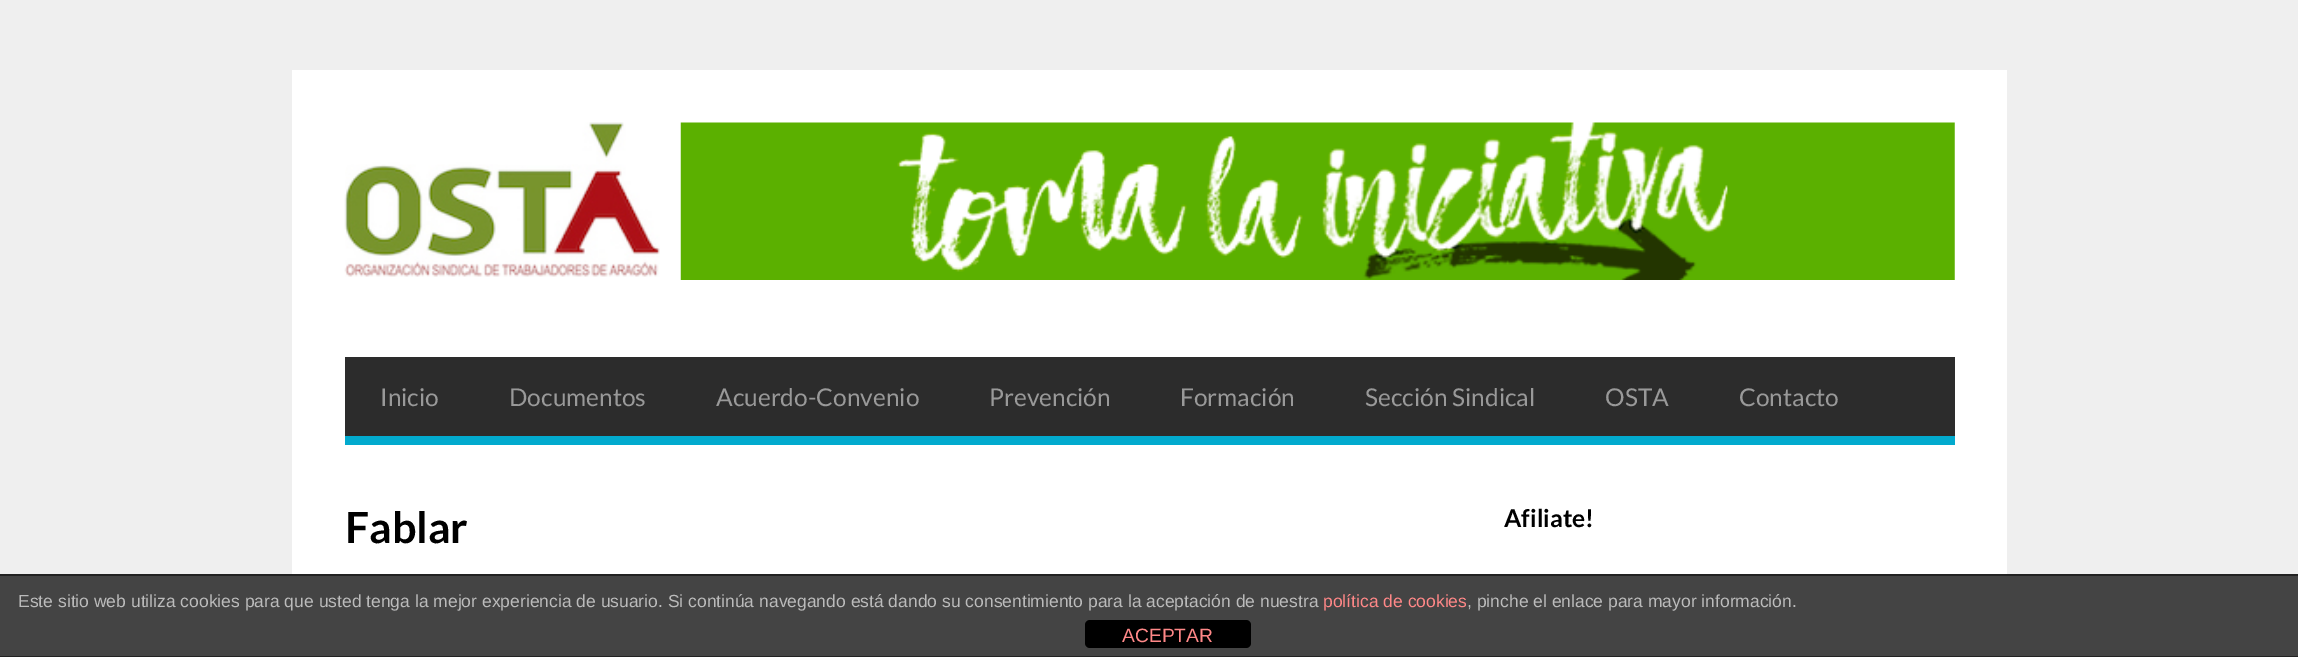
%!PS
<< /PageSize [2298 657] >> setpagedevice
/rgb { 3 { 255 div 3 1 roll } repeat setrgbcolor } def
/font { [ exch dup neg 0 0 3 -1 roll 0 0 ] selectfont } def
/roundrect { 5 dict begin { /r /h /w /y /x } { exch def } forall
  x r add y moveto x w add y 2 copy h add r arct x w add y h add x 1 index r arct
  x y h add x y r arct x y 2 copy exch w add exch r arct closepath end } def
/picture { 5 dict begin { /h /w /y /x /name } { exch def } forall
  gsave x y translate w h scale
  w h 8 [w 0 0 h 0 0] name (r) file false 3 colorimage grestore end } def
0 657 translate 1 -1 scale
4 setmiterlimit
239 239 239 rgb
0 0 2298 657 rectfill
255 255 255 rgb
292 70 1715 504 rectfill
(img/1.rgb) 344 122 316 155 picture
(img/2.rgb) 680 122 1275 158 picture
[
  [345 357 1610 79 44 44 44]
  [345 436 1610 9 2 170 206]
  [0 576 2298 80 68 68 68]
  [0 574 2298 2 34 34 34]
  [0 656 2298 1 34 34 34]
] { aload pop rgb rectfill } forall
0 0 0 rgb
1085 620 166 28 5 roundrect fill
/Lato-Regular 24.5 font
153 153 153 rgb
[
  [(Inicio) 380 406]
  [(Documentos) 509 406]
  [(Acuerdo-Convenio) 716 406]
  [(Prevención) 989 406]
  [(Formación) 1180 406]
  [(Sección Sindical) 1365 406]
  [(OSTA) 1605 406]
  [(Contacto) 1739 406]
] { aload pop moveto show } forall
/Lato-Bold 43 font
0 0 0 rgb
345 543 moveto (Fablar) show
/Lato-Bold 24.5 font
1504 527 moveto (Afiliate!) show
/LiberationSans-Regular 17.5 font
187 187 187 rgb
18 607 moveto (Este sitio web utiliza cookies para que usted tenga la mejor experiencia de usuario. Si continúa navegando está dando su consentimiento para la aceptación de nuestra) show
255 136 136 rgb
1323 607 moveto (política de cookies) show
187 187 187 rgb
1467 607 moveto (, pinche el enlace para mayor información.) show
/LiberationSans-Regular 19.25 font
255 136 136 rgb
1122 642 moveto (ACEPTAR) show
showpage
